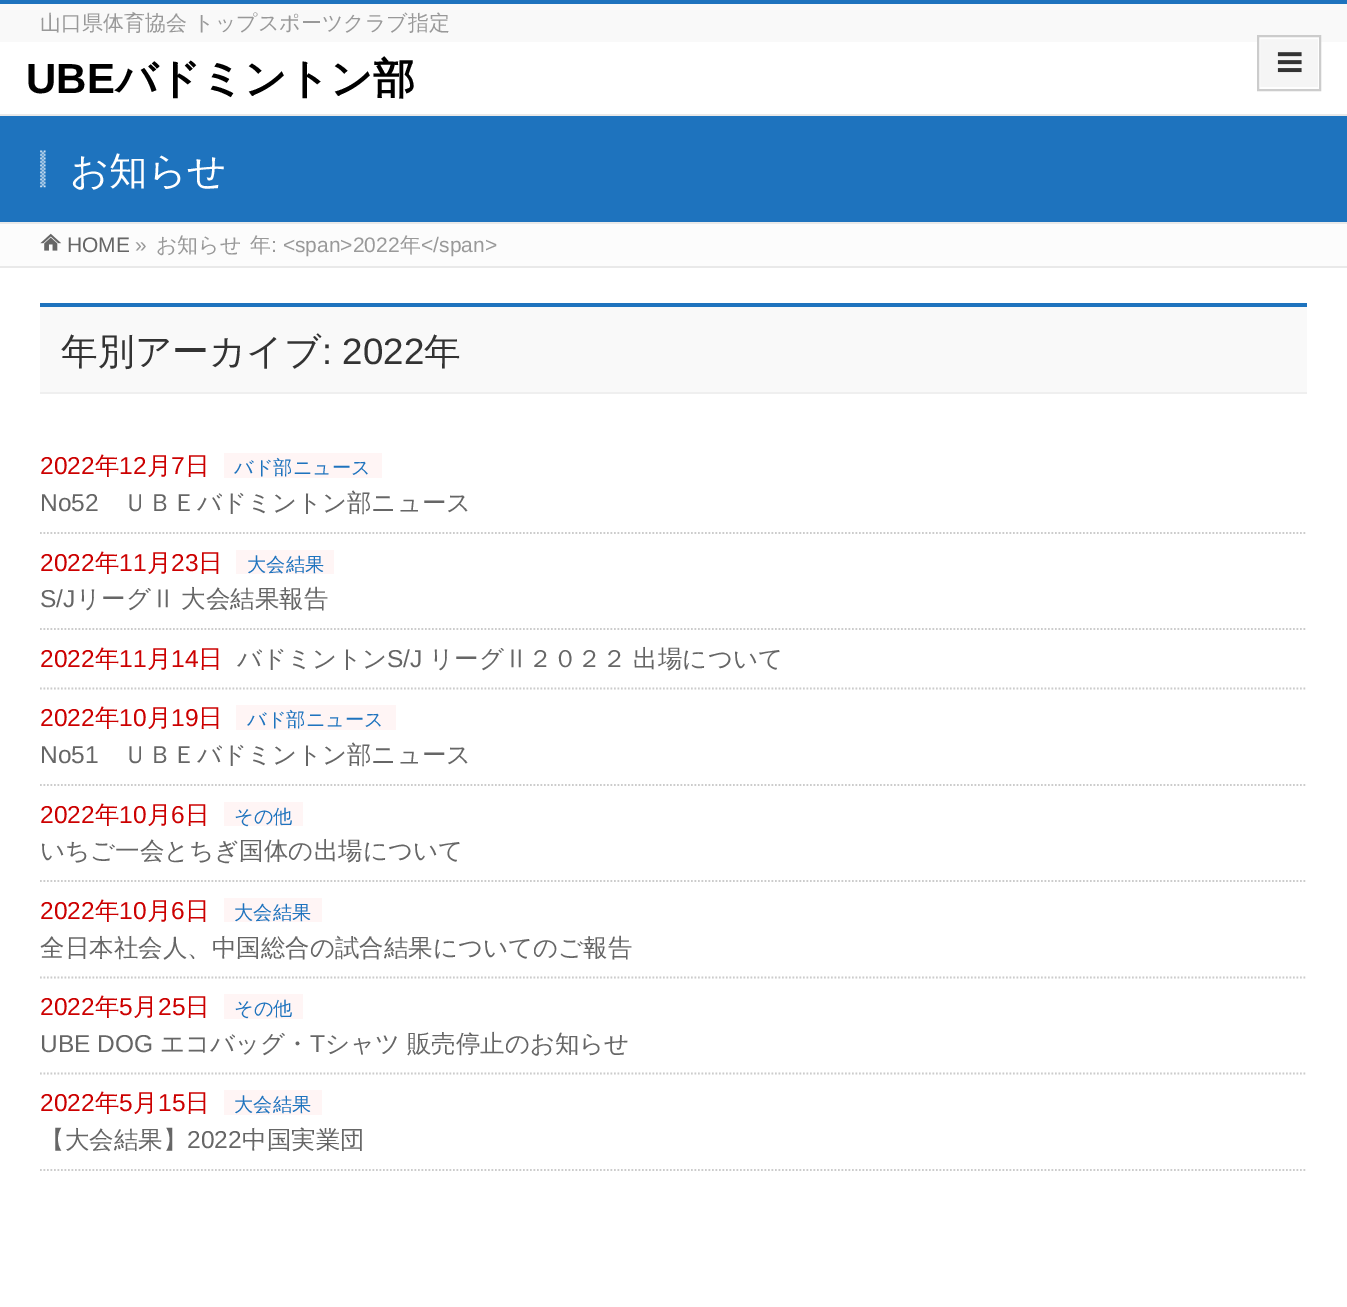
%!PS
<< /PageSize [1347 1307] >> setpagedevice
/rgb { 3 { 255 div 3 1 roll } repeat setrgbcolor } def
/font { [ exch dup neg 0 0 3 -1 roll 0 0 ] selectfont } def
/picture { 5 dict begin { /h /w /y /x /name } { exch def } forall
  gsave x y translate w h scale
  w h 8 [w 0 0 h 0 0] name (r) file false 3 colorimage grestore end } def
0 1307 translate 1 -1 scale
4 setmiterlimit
255 255 255 rgb
0 0 1347 1307 rectfill
249 249 249 rgb
0 4 1347 38 rectfill
30 115 190 rgb
0 0 1347 4 rectfill
245 245 245 rgb
1259 38 moveto 1319 38 lineto 1319 88 lineto 1259 88 lineto closepath gsave fill grestore
254 254 254 rgb
2 setlinewidth
stroke
204 204 204 rgb
1258 36 62 54 rectstroke
(img/1.rgb) 1277 52 25 21 picture
[
  [0 116 1347 106 30 115 190]
  [0 114 1347 2 233 233 233]
  [0 222 1347 2 233 233 233]
] { aload pop rgb rectfill } forall
(img/2.rgb) 40 150 6 38 picture
252 252 252 rgb
0 224 1347 42 rectfill
(img/3.rgb) 40 233 22 18 picture
[
  [0 266 1347 2 233 233 233]
  [40 307 1267 85 249 249 249]
  [40 303 1267 4 30 115 190]
  [40 392 1267 2 239 239 239]
] { aload pop rgb rectfill } forall
204 204 204 rgb
1.8 setlinewidth
[1.75 1.75] 0 setdash
40 533 moveto 1307 533 lineto stroke
255 245 245 rgb
224 453 158 25 rectfill
204 204 204 rgb
40 629 moveto 1307 629 lineto stroke
255 245 245 rgb
236 550 98 24 rectfill
204 204 204 rgb
40 688.5 moveto 1307 688.5 lineto stroke
40 785 moveto 1307 785 lineto stroke
255 245 245 rgb
236 705 160 25 rectfill
204 204 204 rgb
40 881 moveto 1307 881 lineto stroke
255 245 245 rgb
224 802 79 24 rectfill
204 204 204 rgb
40 977.5 moveto 1307 977.5 lineto stroke
255 245 245 rgb
224 898 98 24 rectfill
204 204 204 rgb
40 1073.5 moveto 1307 1073.5 lineto stroke
255 245 245 rgb
224 994 79 25 rectfill
204 204 204 rgb
40 1170 moveto 1307 1170 lineto stroke
255 245 245 rgb
224 1090 98 25 rectfill
/WenQuanYiZenHei-Medium 21 font
153 153 153 rgb
40 30 moveto (山口県体育協会 トップスポーツクラブ指定) show
/LiberationSans-Bold 42 font
0 0 0 rgb
26 93 moveto (UBE) show
/WenQuanYiZenHei-Bold 42 font
115 93 moveto (バドミントン部) show
/WenQuanYiZenHei-Medium 38.5 font
255 255 255 rgb
70 184 moveto (お知らせ) show
/LiberationSans-Regular 21 font
102 102 102 rgb
67 252 moveto (HOME) show
153 153 153 rgb
135 252 moveto (») show
/WenQuanYiZenHei-Medium 21 font
156 252 moveto (お知らせ) show
250 252 moveto (年) show
/LiberationSans-Regular 21 font
271 252 moveto (: <span>2022) show
/WenQuanYiZenHei-Medium 21 font
400 252 moveto (年) show
/LiberationSans-Regular 21 font
421 252 moveto (</span>) show
/WenQuanYiZenHei-Medium 36.75 font
51 51 51 rgb
61 364 moveto (年別アーカイブ) show
/LiberationSans-Regular 36.75 font
322 364 moveto (: 2022) show
/WenQuanYiZenHei-Medium 36.75 font
424 364 moveto (年) show
/LiberationSans-Regular 24.5 font
204 0 0 rgb
40 474 moveto (2022) show
/WenQuanYiZenHei-Medium 24.5 font
95 474 moveto (年) show
/LiberationSans-Regular 24.5 font
119 474 moveto (12) show
/WenQuanYiZenHei-Medium 24.5 font
147 474 moveto (月) show
/LiberationSans-Regular 24.5 font
171 474 moveto (7) show
/WenQuanYiZenHei-Medium 24.5 font
185 474 moveto (日) show
/WenQuanYiZenHei-Medium 19.25 font
30 115 190 rgb
234 474 moveto (バド部ニュース) show
/LiberationSans-Regular 24.5 font
102 102 102 rgb
40 511 moveto (No52) show
/WenQuanYiZenHei-Medium 24.5 font
123 511 moveto (ＵＢＥバドミントン部ニュース) show
/LiberationSans-Regular 24.5 font
204 0 0 rgb
40 571 moveto (2022) show
/WenQuanYiZenHei-Medium 24.5 font
95 571 moveto (年) show
/LiberationSans-Regular 24.5 font
119 571 moveto (11) show
/WenQuanYiZenHei-Medium 24.5 font
147 571 moveto (月) show
/LiberationSans-Regular 24.5 font
171 571 moveto (23) show
/WenQuanYiZenHei-Medium 24.5 font
198 571 moveto (日) show
/WenQuanYiZenHei-Medium 19.25 font
30 115 190 rgb
247 571 moveto (大会結果) show
/LiberationSans-Regular 24.5 font
102 102 102 rgb
40 607 moveto (S/J) show
/WenQuanYiZenHei-Medium 24.5 font
76 607 moveto -1 0 32 (リーグⅡ 大会結果報告) widthshow
/LiberationSans-Regular 24.5 font
204 0 0 rgb
40 667 moveto (2022) show
/WenQuanYiZenHei-Medium 24.5 font
95 667 moveto (年) show
/LiberationSans-Regular 24.5 font
119 667 moveto (11) show
/WenQuanYiZenHei-Medium 24.5 font
147 667 moveto (月) show
/LiberationSans-Regular 24.5 font
171 667 moveto (14) show
/WenQuanYiZenHei-Medium 24.5 font
198 667 moveto (日) show
102 102 102 rgb
237 667 moveto (バドミントン) show
/LiberationSans-Regular 24.5 font
387 667 moveto (S/J) show
/WenQuanYiZenHei-Medium 24.5 font
429 667 moveto (リーグⅡ２０２２ 出場について) show
/LiberationSans-Regular 24.5 font
204 0 0 rgb
40 726 moveto (2022) show
/WenQuanYiZenHei-Medium 24.5 font
95 726 moveto (年) show
/LiberationSans-Regular 24.5 font
119 726 moveto (10) show
/WenQuanYiZenHei-Medium 24.5 font
147 726 moveto (月) show
/LiberationSans-Regular 24.5 font
171 726 moveto (19) show
/WenQuanYiZenHei-Medium 24.5 font
198 726 moveto (日) show
/WenQuanYiZenHei-Medium 19.25 font
30 115 190 rgb
247 726 moveto (バド部ニュース) show
/LiberationSans-Regular 24.5 font
102 102 102 rgb
40 763 moveto (No51) show
/WenQuanYiZenHei-Medium 24.5 font
123 763 moveto (ＵＢＥバドミントン部ニュース) show
/LiberationSans-Regular 24.5 font
204 0 0 rgb
40 823 moveto (2022) show
/WenQuanYiZenHei-Medium 24.5 font
95 823 moveto (年) show
/LiberationSans-Regular 24.5 font
119 823 moveto (10) show
/WenQuanYiZenHei-Medium 24.5 font
147 823 moveto (月) show
/LiberationSans-Regular 24.5 font
171 823 moveto (6) show
/WenQuanYiZenHei-Medium 24.5 font
185 823 moveto (日) show
/WenQuanYiZenHei-Medium 19.25 font
30 115 190 rgb
234 823 moveto (その他) show
/WenQuanYiZenHei-Medium 24.5 font
102 102 102 rgb
40 859 moveto (いちご一会とちぎ国体の出場について) show
/LiberationSans-Regular 24.5 font
204 0 0 rgb
40 919 moveto (2022) show
/WenQuanYiZenHei-Medium 24.5 font
95 919 moveto (年) show
/LiberationSans-Regular 24.5 font
119 919 moveto (10) show
/WenQuanYiZenHei-Medium 24.5 font
147 919 moveto (月) show
/LiberationSans-Regular 24.5 font
171 919 moveto (6) show
/WenQuanYiZenHei-Medium 24.5 font
185 919 moveto (日) show
/WenQuanYiZenHei-Medium 19.25 font
30 115 190 rgb
234 919 moveto (大会結果) show
/WenQuanYiZenHei-Medium 24.5 font
102 102 102 rgb
40 956 moveto (全日本社会人、中国総合の試合結果についてのご報告) show
/LiberationSans-Regular 24.5 font
204 0 0 rgb
40 1015 moveto (2022) show
/WenQuanYiZenHei-Medium 24.5 font
95 1015 moveto (年) show
/LiberationSans-Regular 24.5 font
119 1015 moveto (5) show
/WenQuanYiZenHei-Medium 24.5 font
133 1015 moveto (月) show
/LiberationSans-Regular 24.5 font
158 1015 moveto (25) show
/WenQuanYiZenHei-Medium 24.5 font
185 1015 moveto (日) show
/WenQuanYiZenHei-Medium 19.25 font
30 115 190 rgb
234 1015 moveto (その他) show
/LiberationSans-Regular 24.5 font
102 102 102 rgb
40 1052 moveto (UBE DOG) show
/WenQuanYiZenHei-Medium 24.5 font
160 1052 moveto (エコバッグ・) show
/LiberationSans-Regular 24.5 font
310 1052 moveto (T) show
/WenQuanYiZenHei-Medium 24.5 font
325 1052 moveto -1 0 32 (シャツ 販売停止のお知らせ) widthshow
/LiberationSans-Regular 24.5 font
204 0 0 rgb
40 1111 moveto (2022) show
/WenQuanYiZenHei-Medium 24.5 font
95 1111 moveto (年) show
/LiberationSans-Regular 24.5 font
119 1111 moveto (5) show
/WenQuanYiZenHei-Medium 24.5 font
133 1111 moveto (月) show
/LiberationSans-Regular 24.5 font
158 1111 moveto (15) show
/WenQuanYiZenHei-Medium 24.5 font
185 1111 moveto (日) show
/WenQuanYiZenHei-Medium 19.25 font
30 115 190 rgb
234 1111 moveto (大会結果) show
/WenQuanYiZenHei-Medium 24.5 font
102 102 102 rgb
40 1148 moveto (【大会結果】) show
/LiberationSans-Regular 24.5 font
187 1148 moveto (2022) show
/WenQuanYiZenHei-Medium 24.5 font
242 1148 moveto (中国実業団) show
showpage
